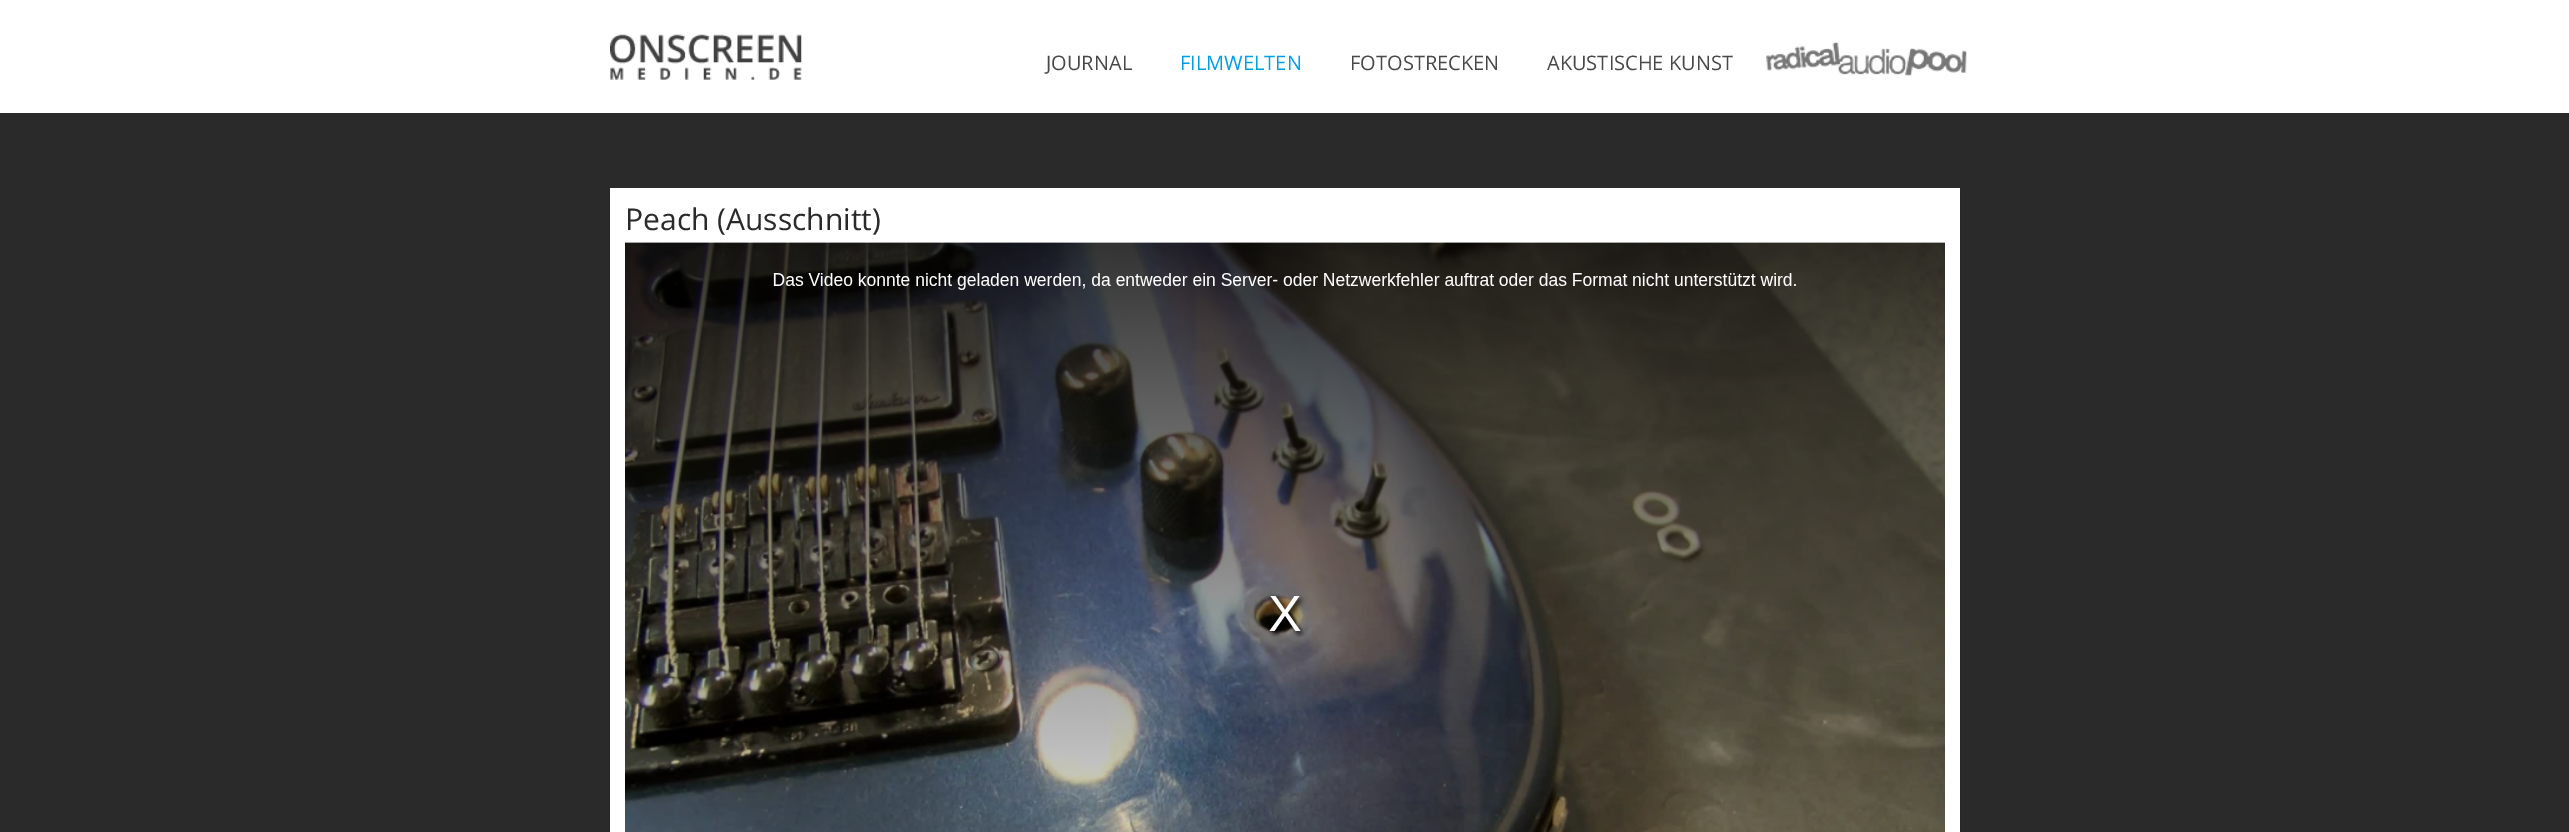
%!PS
<< /PageSize [2569 832] /PageUsesTransparency true >> setpagedevice
/rgb { 3 { 255 div 3 1 roll } repeat setrgbcolor } def
/font { [ exch dup neg 0 0 3 -1 roll 0 0 ] selectfont } def
/alpha { dup .setfillconstantalpha .setstrokeconstantalpha } def
/roundrect { 5 dict begin { /r /h /w /y /x } { exch def } forall
  x r add y moveto x w add y 2 copy h add r arct x w add y h add x 1 index r arct
  x y h add x y r arct x y 2 copy exch w add exch r arct closepath end } def
/shadow { 12 dict begin { /a /b /q /h /w /y /x } { exch def } forall gsave /was 0 def
  9 -2 -9 { dup b mul 4 div /e exch def 1 sub .425 mul 2.718 exch exp 1 add a .99 .min exch div /now exch def
    1 1 now sub 1 was sub div sub alpha /was now def
    w h .min e 2 mul add 0 gt { x e sub y e sub w e 2 mul add h e 2 mul add
      q e add b .6 mul add w h .min 2 div e add .min 0 .max roundrect fill } if } for grestore end } def
/picture { 5 dict begin { /h /w /y /x /name } { exch def } forall
  gsave x y translate w h scale
  w h 8 [w 0 0 h 0 0] name (r) file false 3 colorimage grestore end } def
0 .pushpdf14devicefilter
0 832 translate 1 -1 scale
4 setmiterlimit
42 42 42 rgb
0 0 2569 832 rectfill
255 255 255 rgb
0 0 2569 113 rectfill
(img/1.rgb) 610 34 192 46 picture
(img/2.rgb) 1766 42 201 34 picture
0 0 0 rgb
610 191 1350 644 0 1 0.25 shadow
255 255 255 rgb
610 188 1350 644 rectfill
(img/3.rgb) 625 242 1320 590 picture
/OpenSans-Regular 20 font
72 72 72 rgb
1046 70 moveto (JOURNAL) show
0 159 227 rgb
1180 70 moveto (FILMWELTEN) show
72 72 72 rgb
1350 70 moveto (FOTOSTRECKEN) show
1547 70 moveto (AKUSTISCHE KUNST) show
/OpenSans-Regular 30 font
42 42 42 rgb
625 230 moveto (Peach \(Ausschnitt\)) show
.poppdf14devicefilter showpage
